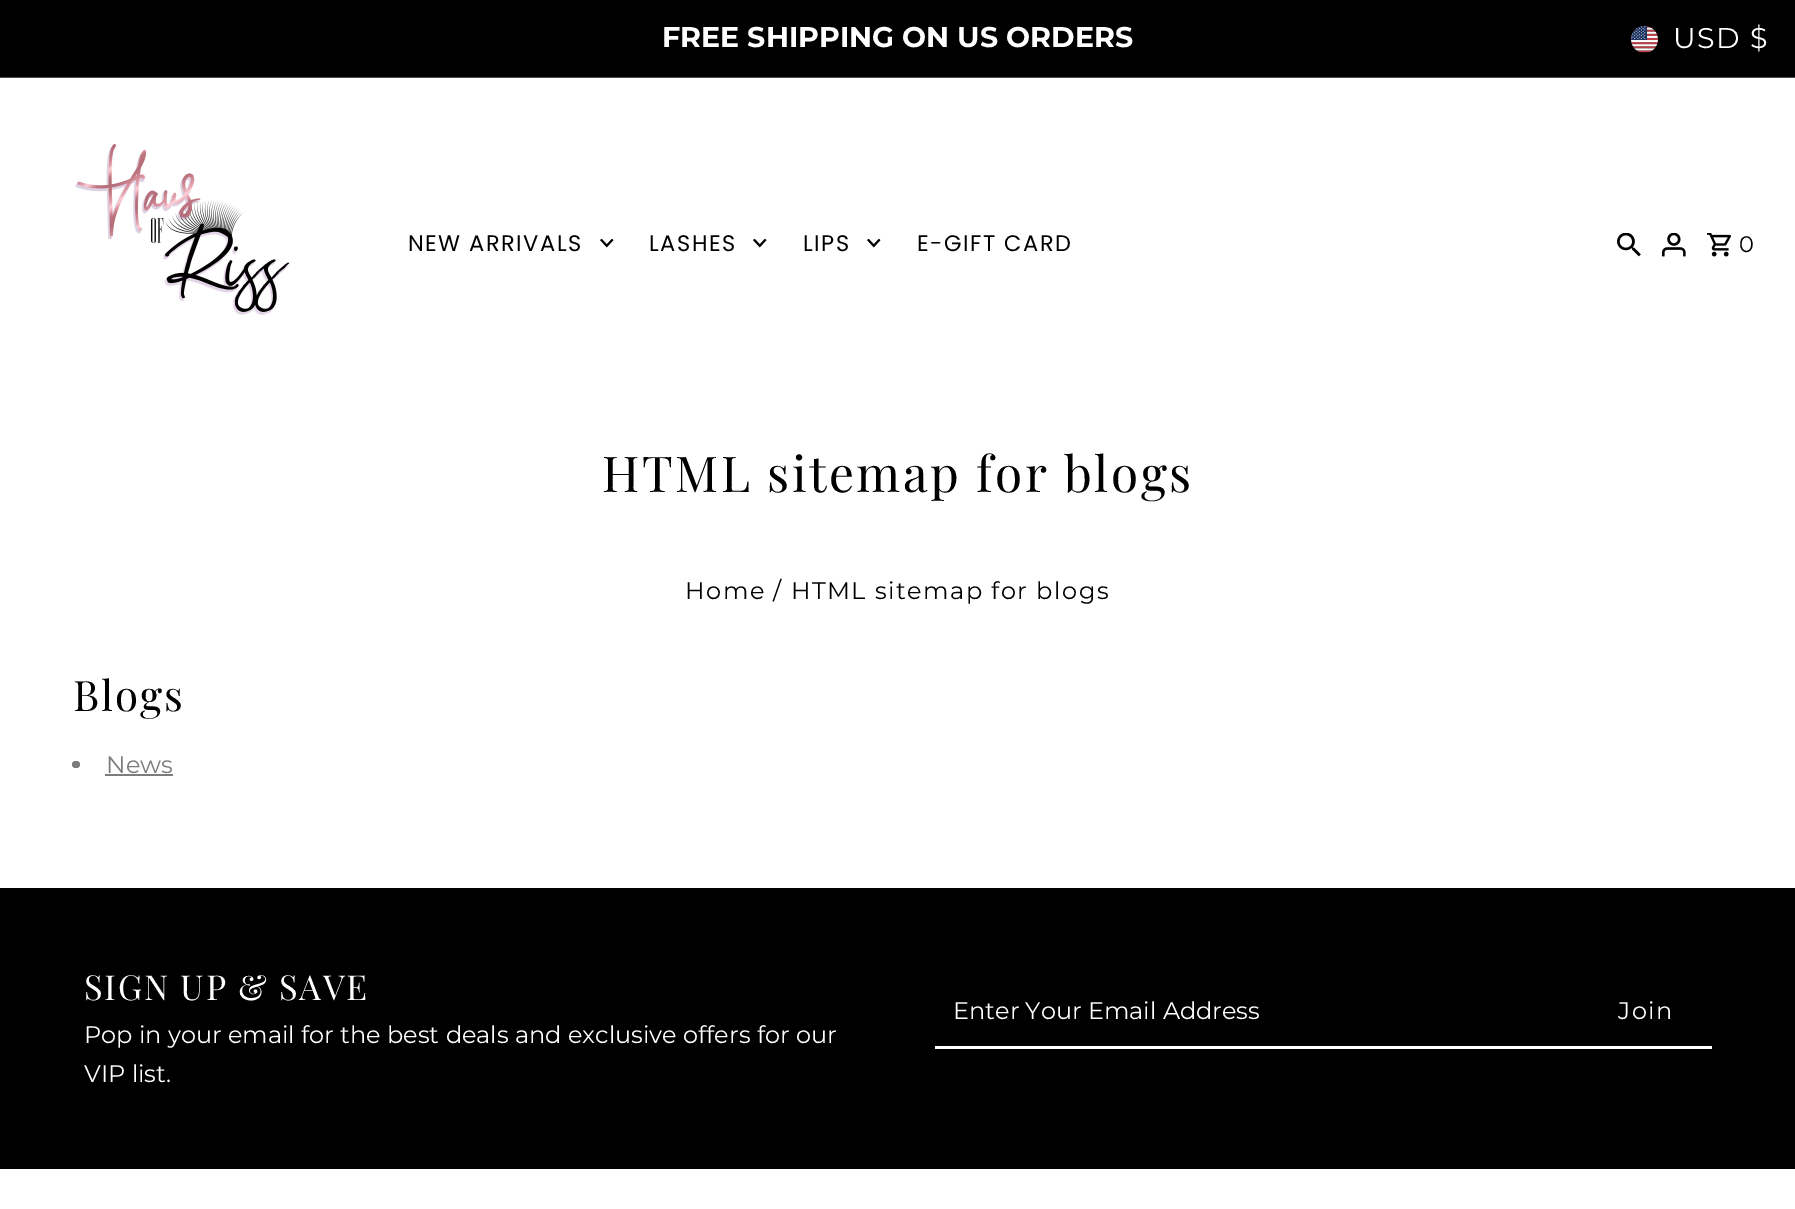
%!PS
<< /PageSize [1795 1209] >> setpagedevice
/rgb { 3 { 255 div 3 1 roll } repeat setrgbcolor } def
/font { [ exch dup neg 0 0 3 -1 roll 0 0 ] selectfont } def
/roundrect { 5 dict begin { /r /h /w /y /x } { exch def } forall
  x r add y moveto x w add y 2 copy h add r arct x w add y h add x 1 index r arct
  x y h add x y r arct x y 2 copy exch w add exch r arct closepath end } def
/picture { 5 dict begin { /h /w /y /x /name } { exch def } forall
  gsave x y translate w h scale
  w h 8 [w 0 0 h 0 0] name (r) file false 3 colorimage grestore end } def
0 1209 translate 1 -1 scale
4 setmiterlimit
255 255 255 rgb
0 0 1795 1209 rectfill
77 77 77 rgb
0 77 1795 1 rectfill
0 0 0 rgb
0 0 1795 77 rectfill
(img/1.rgb) 1631 26 27 27 picture
(img/2.rgb) 75 144 215 171 picture
(img/3.rgb) 600 239 14 9 picture
(img/3.rgb) 753 239 14 9 picture
(img/3.rgb) 867 239 14 9 picture
(img/4.rgb) 1617 233 24 24 picture
(img/5.rgb) 1662 233 24 24 picture
(img/6.rgb) 1707 233 24 24 picture
124 124 124 rgb
72 761 8 7 3.5 roundrect fill
[
  [105 774 68 2 124 124 124]
  [0 888 1795 281 0 0 0]
  [935 1046 777 3 255 255 255]
] { aload pop rgb rectfill } forall
/Montserrat-Bold 28.5 font
662 47 moveto (FREE SHIPPING ON US ORDERS) show
/Montserrat-Regular 28.5 font
1673 48 moveto 1.5 0 (USD $) ashow
/Poppins-Regular 22.5 font
0 0 0 rgb
408 251 moveto 1.5 0 (NEW ARRIVALS) ashow
649 251 moveto 1.5 0 (LASHES) ashow
803 251 moveto 1.5 0 (LIPS) ashow
917 251 moveto 1.5 0 (E-GIFT CARD) ashow
/Montserrat-Regular 22.5 font
1739 252 moveto 1.5 0 (0) ashow
/PlayfairDisplay-Regular 49.5 font
602 492 moveto 2.5 0 (HTML sitemap for blogs) ashow
/Montserrat-Regular 24 font
685 599 moveto 1.5 0 (Home / HTML sitemap for blogs) ashow
/PlayfairDisplay-Regular 42 font
73 711 moveto 2 0 (Blogs) ashow
/Montserrat-Regular 24 font
124 124 124 rgb
106 773 moveto (News) show
/PlayfairDisplay-Regular 34.5 font
255 255 255 rgb
84 1000 moveto 1.75 0 (SIGN UP & SAVE) ashow
/Montserrat-Regular 24 font
[
  [(Pop in your email for the best deals and exclusive offers for our) 84 1043]
  [(VIP list.) 84 1082]
  [(Enter Your Email Address) 953 1019]
] { aload pop moveto show } forall
1618 1019 moveto 1.5 0 (Join) ashow
showpage
